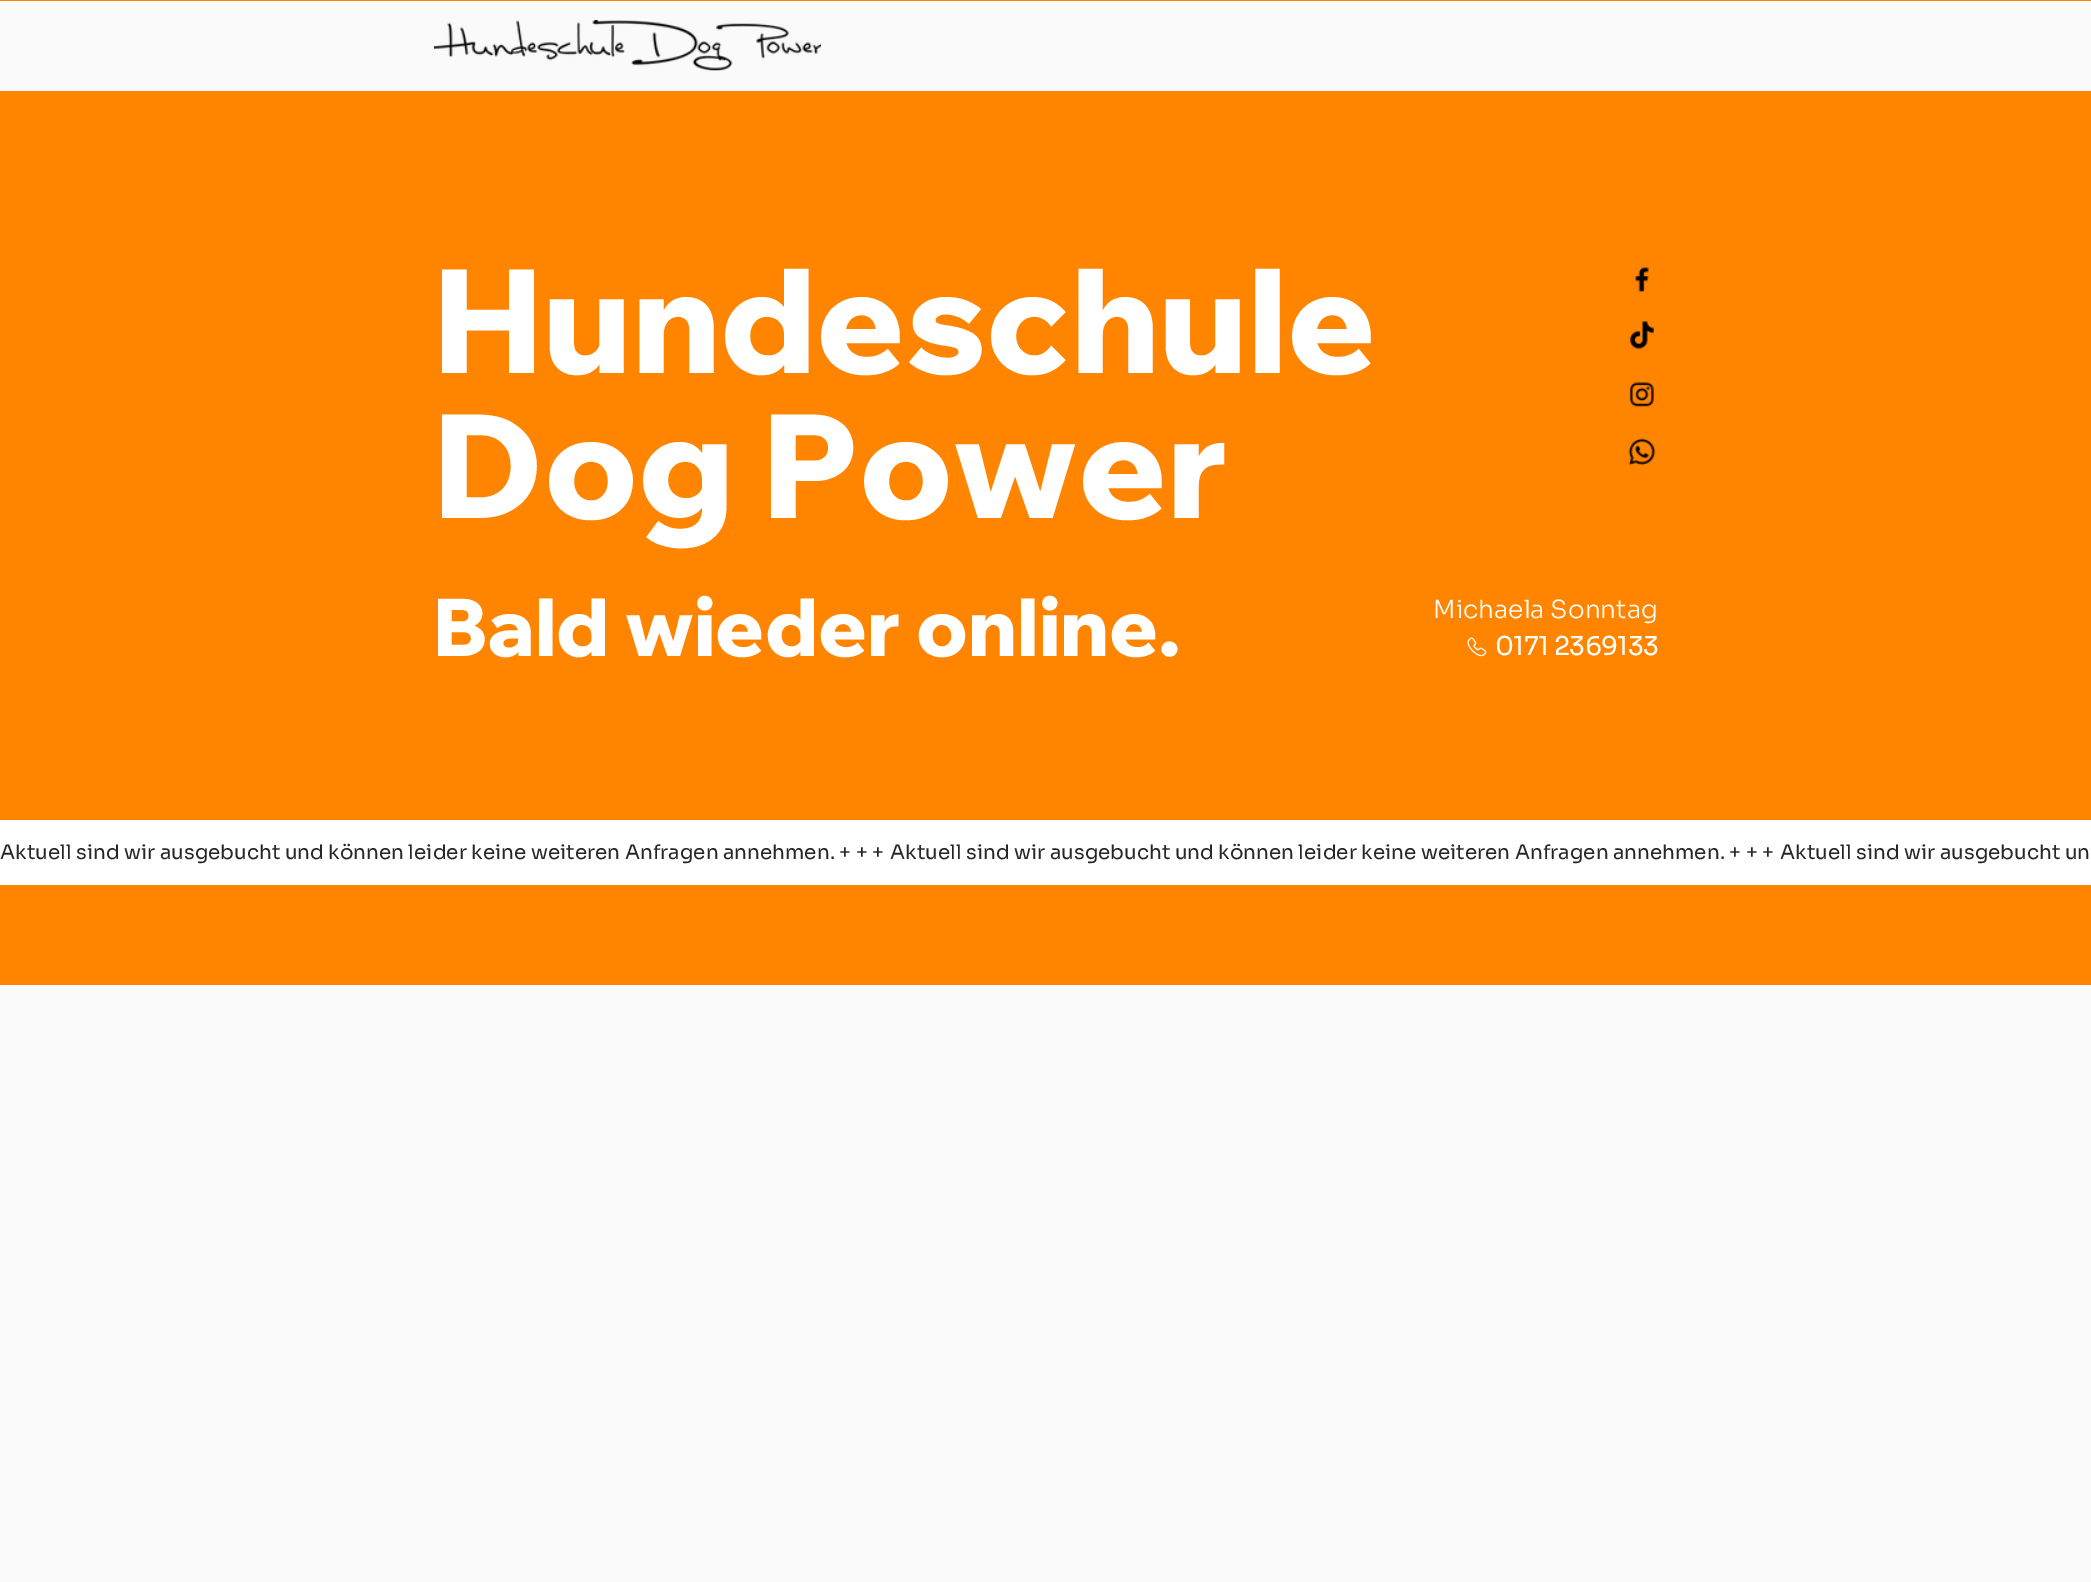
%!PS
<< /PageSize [2091 1582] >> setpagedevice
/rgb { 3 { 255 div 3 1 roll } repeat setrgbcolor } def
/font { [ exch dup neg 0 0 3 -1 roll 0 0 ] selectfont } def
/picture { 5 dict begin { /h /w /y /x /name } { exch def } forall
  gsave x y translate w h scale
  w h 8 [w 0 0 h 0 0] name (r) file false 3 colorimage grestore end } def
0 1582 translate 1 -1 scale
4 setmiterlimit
250 250 250 rgb
0 0 2091 1582 rectfill
255 133 0 rgb
0 0 2091 820 rectfill
250 250 250 rgb
0 1 2091 90 rectfill
(img/1.rgb) 433 20 389 51 picture
(img/2.rgb) 1635 267 14 25 picture
(img/3.rgb) 1629 321 25 28 picture
(img/4.rgb) 1629 382 25 25 picture
(img/5.rgb) 1628 438 28 28 picture
(img/6.rgb) 1467 637 20 20 picture
255 255 255 rgb
0 820 2091 65 rectfill
255 133 0 rgb
0 885 2091 100 rectfill
/WixMadeforDisplay-ExtraBold 145 font
255 255 255 rgb
433 373 moveto (Hundeschule) show
433 518 moveto (Dog Power) show
/WixMadeforDisplay-ExtraBold 80 font
433 656 moveto (Bald wieder online.) show
/Sora-Light 25 font
1433 618 moveto (Michaela Sonntag) show
/Sora-Bold 25 font
1495 655 moveto (0171 2369133) show
/Sora-Regular 20 font
38 38 38 rgb
[
  [(Aktuell sind wir ausgebucht und können leider keine weiteren Anfragen annehmen. + + +) 0 859]
  [(Aktuell sind wir ausgebucht und können leider keine weiteren Anfragen annehmen. + + +) 890 859]
  [(Aktuell sind wir ausgebucht un) 1780 859]
] { aload pop moveto show } forall
showpage
